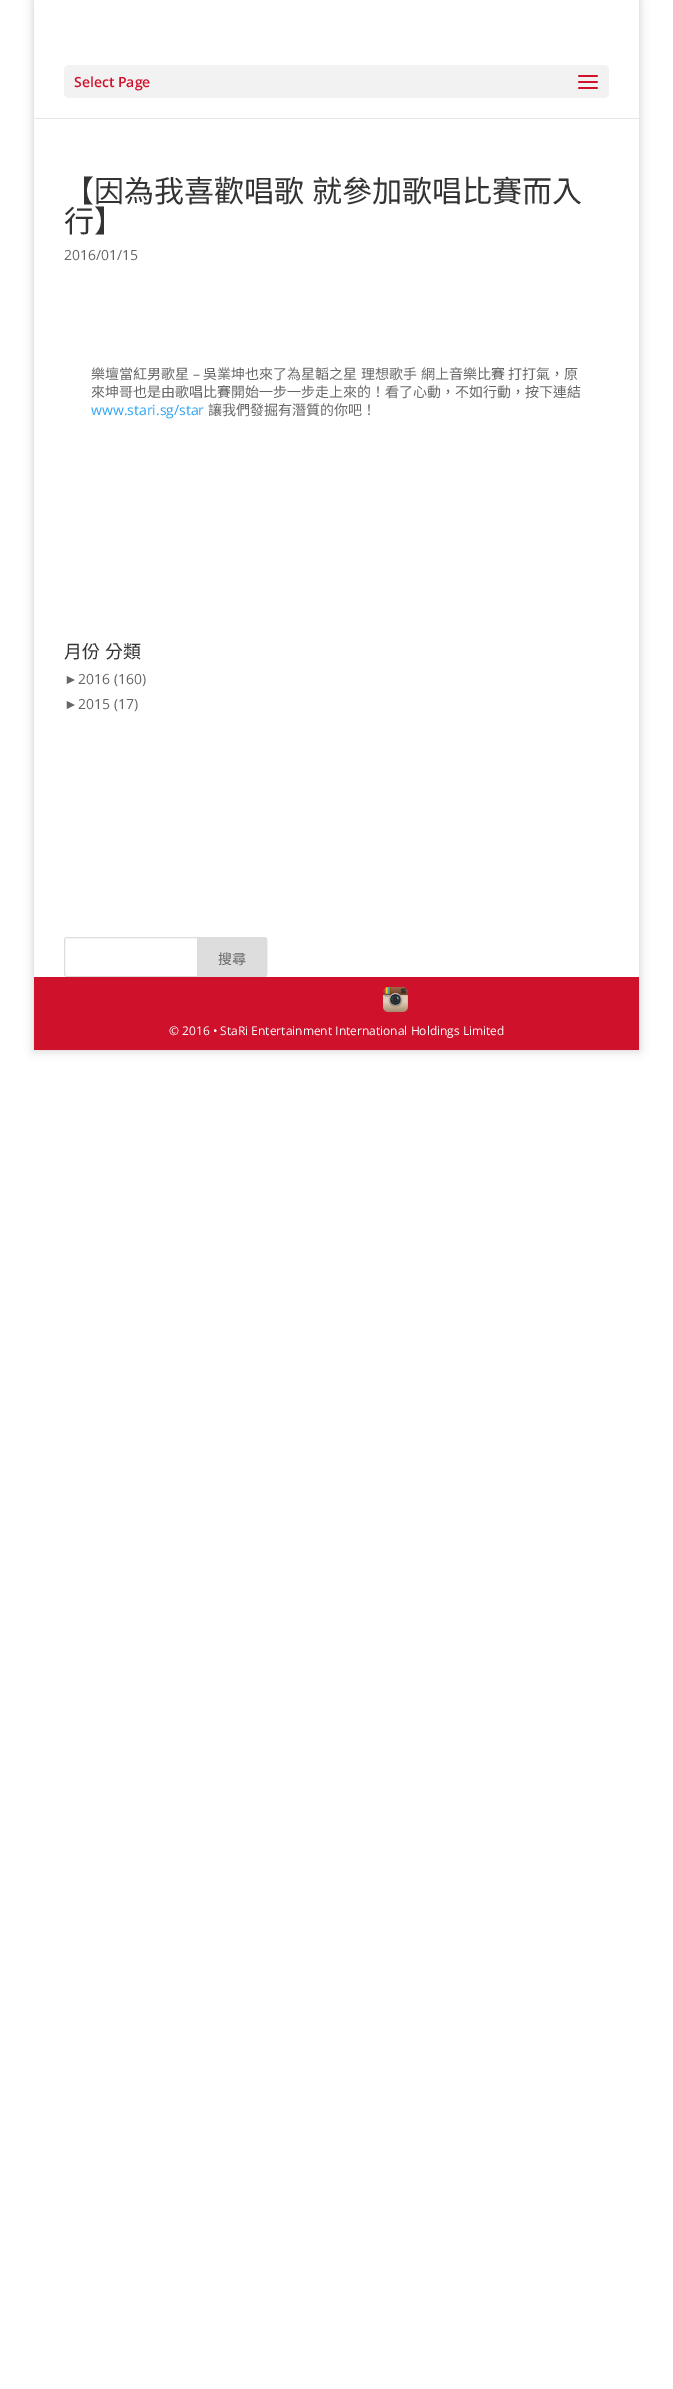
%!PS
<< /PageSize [673 2389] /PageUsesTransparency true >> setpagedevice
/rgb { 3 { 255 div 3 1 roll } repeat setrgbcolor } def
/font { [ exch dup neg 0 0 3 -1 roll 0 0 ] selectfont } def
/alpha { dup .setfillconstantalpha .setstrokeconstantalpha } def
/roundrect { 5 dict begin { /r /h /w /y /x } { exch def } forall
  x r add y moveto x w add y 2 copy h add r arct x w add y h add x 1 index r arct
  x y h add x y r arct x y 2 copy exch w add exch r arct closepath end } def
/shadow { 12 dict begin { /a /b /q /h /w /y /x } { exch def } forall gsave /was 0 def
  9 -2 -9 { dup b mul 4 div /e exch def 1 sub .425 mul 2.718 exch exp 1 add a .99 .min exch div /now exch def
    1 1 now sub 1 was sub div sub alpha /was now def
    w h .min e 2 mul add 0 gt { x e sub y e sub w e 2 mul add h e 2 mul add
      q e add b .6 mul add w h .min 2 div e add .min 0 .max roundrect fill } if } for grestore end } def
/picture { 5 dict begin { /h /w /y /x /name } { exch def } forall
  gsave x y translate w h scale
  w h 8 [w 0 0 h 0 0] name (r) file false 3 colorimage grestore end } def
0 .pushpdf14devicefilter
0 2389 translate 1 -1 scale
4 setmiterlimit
255 255 255 rgb
0 0 673 2389 rectfill
gsave
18 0 moveto 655 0 lineto 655 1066 lineto 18 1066 lineto closepath 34 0 moveto 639 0 lineto 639 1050 lineto 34 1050 lineto closepath eoclip newpath
0 0 0 rgb
34 0 605 1050 0 5 0.2 shadow
grestore
230 230 230 rgb
34 118 605 1 rectfill
242 242 242 rgb
64 65 545 33 5 roundrect fill
(img/1.rgb) 578 75 20 14 picture
221 221 221 rgb
64.5 937.5 202 39 2.5 roundrect stroke
197.5 937.5 moveto 264 937.5 lineto 265.5 937.5 266.5 938.5 266.5 940 curveto 266.5 974 lineto 266.5 975.5 265.5 976.5 264 976.5 curveto 197.5 976.5 lineto closepath gsave fill grestore
stroke
207 17 43 rgb
34 977 605 73 rectfill
(img/2.rgb) 383 987 25 25 picture
/OpenSans-SemiBold 14 font
74 87 moveto (Select Page) show
/NotoSansCJKTC-Regular 30 font
51 51 51 rgb
64 202 moveto 1 0 32 (【因為我喜歡唱歌 就參加歌唱比賽而入) widthshow
64 232 moveto (行】) show
/OpenSans-Regular 14 font
102 102 102 rgb
64 260 moveto (2016/01/15) show
/NotoSansCJKTC-Regular 14 font
91 379 moveto (樂壇當紅男歌星) show
/OpenSans-Regular 14 font
193 379 moveto (–) show
/NotoSansCJKTC-Regular 14 font
[
  [(吳業坤也來了為星韜之星) 203 379]
  [(理想歌手) 361 379]
  [(網上音樂比賽) 421 379]
  [(打打氣，原) 508 379]
  [(來坤哥也是由歌唱比賽開始一步一步走上來的！看了心動，不如行動，按下連結) 91 397]
] { aload pop moveto show } forall
/OpenSans-Regular 14 font
46 163 242 rgb
91 415 moveto (www.stari.sg/star) show
/NotoSansCJKTC-Regular 14 font
102 102 102 rgb
208 415 moveto (讓我們發掘有潛質的你吧！) show
/NotoSansCJKTC-Regular 18 font
51 51 51 rgb
64 658 moveto 1 0 32 (月份 分類) widthshow
/LiberationSans-Regular 14 font
102 102 102 rgb
64 684 moveto (►) show
/OpenSans-Regular 14 font
78 684 moveto (2016 \(160\)) show
/LiberationSans-Regular 14 font
64 709 moveto (►) show
/OpenSans-Regular 14 font
78 709 moveto (2015 \(17\)) show
/NotoSansCJKTC-Regular 14 font
218 964 moveto (搜尋) show
/OpenSans-Regular 12 font
255 255 255 rgb
169 1035 moveto (© 2016 • StaRi Entertainment International Holdings Limited) show
.poppdf14devicefilter showpage
